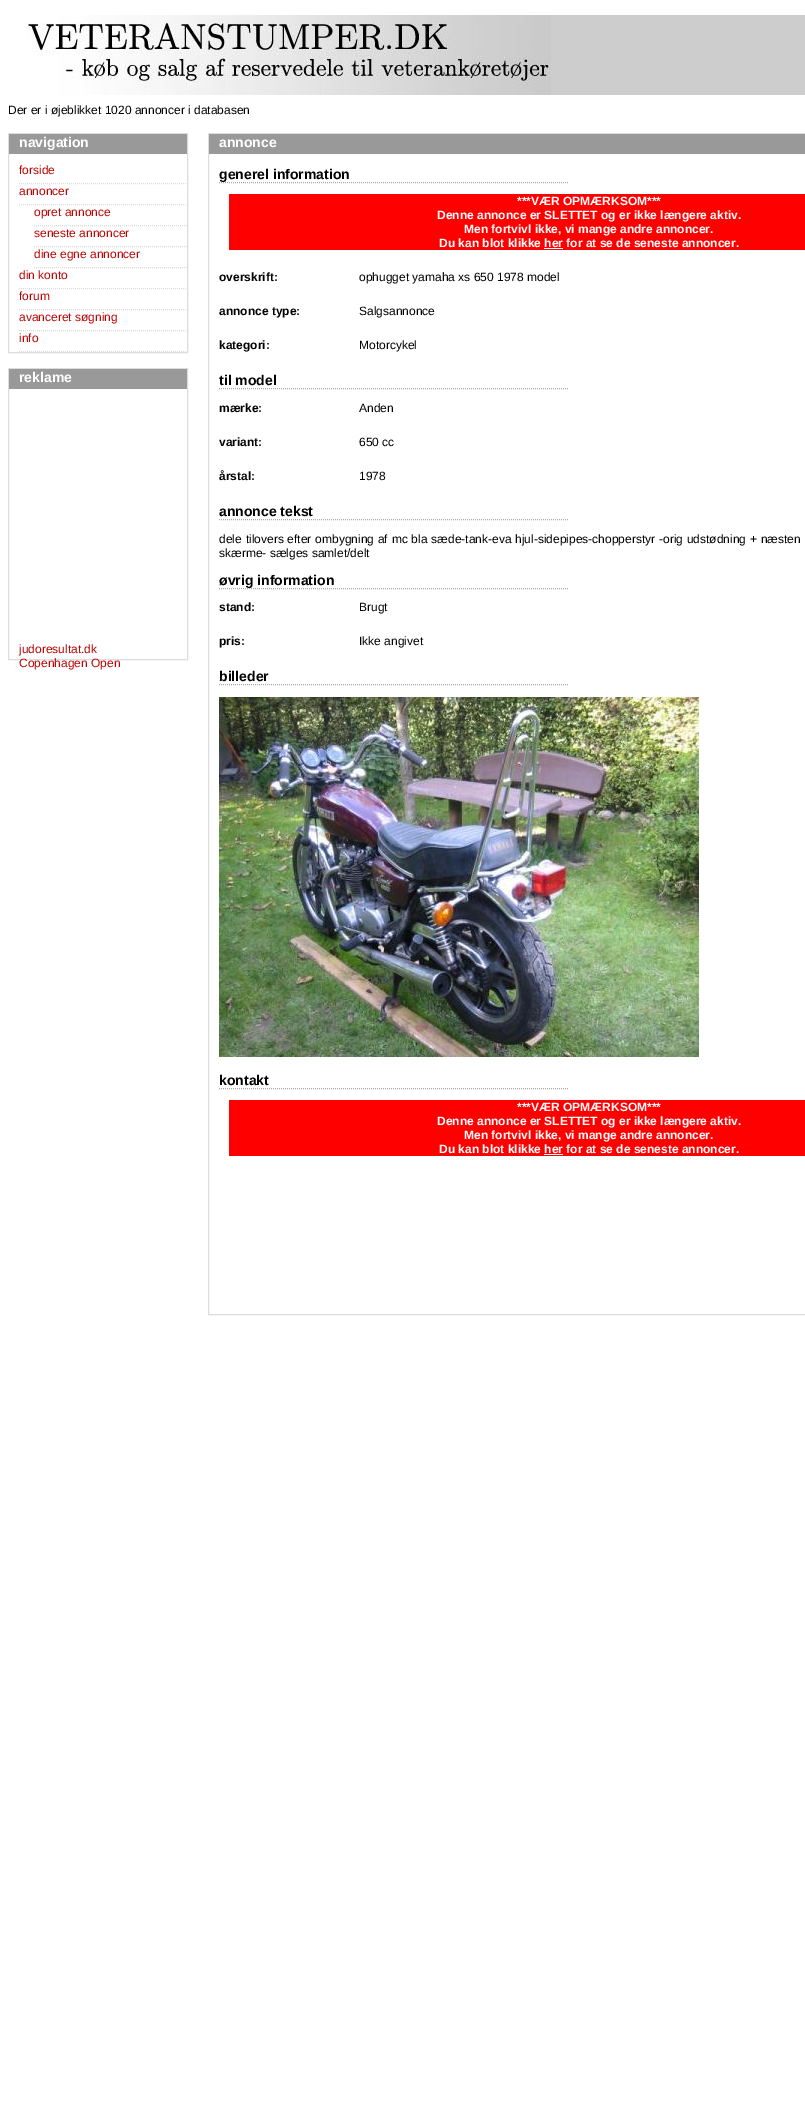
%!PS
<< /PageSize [805 2126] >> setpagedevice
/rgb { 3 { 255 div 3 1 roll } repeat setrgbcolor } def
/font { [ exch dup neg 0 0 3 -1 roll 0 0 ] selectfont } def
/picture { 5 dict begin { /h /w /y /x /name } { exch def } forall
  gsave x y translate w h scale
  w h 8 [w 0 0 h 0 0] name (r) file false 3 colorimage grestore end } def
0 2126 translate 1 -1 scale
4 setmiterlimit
255 255 255 rgb
0 0 805 2126 rectfill
(img/1.rgb) 24 15 781 80 picture
221 221 221 rgb
8.5 133.5 179 219 rectstroke
153 153 153 rgb
9 134 178 20 rectfill
221 221 221 rgb
[1 1] 0 setdash
19 183.5 moveto 187 183.5 lineto stroke
19 204.5 moveto 187 204.5 lineto stroke
34 225.5 moveto 187 225.5 lineto stroke
34 246.5 moveto 187 246.5 lineto stroke
34 267.5 moveto 187 267.5 lineto stroke
19 288.5 moveto 187 288.5 lineto stroke
19 309.5 moveto 187 309.5 lineto stroke
19 330.5 moveto 187 330.5 lineto stroke
19 351.5 moveto 187 351.5 lineto stroke
[] 0 setdash
8.5 368.5 179 291 rectstroke
153 153 153 rgb
9 369 178 20 rectfill
221 221 221 rgb
208.5 133.5 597 1181 rectstroke
153 153 153 rgb
209 134 596 20 rectfill
170 170 170 rgb
[1 1] 0 setdash
219 182.5 moveto 569 182.5 lineto stroke
255 0 0 rgb
229 194 576 56 rectfill
255 255 255 rgb
544 248 19 1 rectfill
170 170 170 rgb
219 388.5 moveto 569 388.5 lineto stroke
219 519.5 moveto 569 519.5 lineto stroke
219 588.5 moveto 569 588.5 lineto stroke
219 684.5 moveto 569 684.5 lineto stroke
(img/2.rgb) 219 697 480 360 picture
219 1088.5 moveto 569 1088.5 lineto stroke
255 0 0 rgb
229 1100 576 56 rectfill
255 255 255 rgb
544 1154 19 1 rectfill
/LiberationSans-Regular 12 font
0 0 0 rgb
8 114 moveto (Der er i øjeblikket 1020 annoncer i databasen) show
/LiberationSans-Bold 14 font
255 255 255 rgb
19 147 moveto (navigation) show
/LiberationSans-Regular 12 font
187 4 4 rgb
[
  [(forside) 19 174]
  [(annoncer) 19 195]
  [(opret annonce) 34 216]
  [(seneste annoncer) 34 237]
  [(dine egne annoncer) 34 258]
  [(din konto) 19 279]
  [(forum) 19 300]
  [(avanceret søgning) 19 321]
  [(info) 19 342]
] { aload pop moveto show } forall
/LiberationSans-Bold 14 font
255 255 255 rgb
19 382 moveto (reklame) show
/LiberationSans-Regular 12 font
187 4 4 rgb
19 653 moveto (judoresultat.dk) show
19 667 moveto (Copenhagen Open) show
/LiberationSans-Bold 14 font
255 255 255 rgb
219 147 moveto (annonce) show
0 0 0 rgb
219 179 moveto (generel information) show
/LiberationSans-Bold 12 font
255 255 255 rgb
[
  [(***VÆR OPMÆRKSOM***) 517 205]
  [(Denne annonce er SLETTET og er ikke længere aktiv.) 437 219]
  [(Men fortvivl ikke, vi mange andre annoncer.) 464 233]
  [(Du kan blot klikke her for at se de seneste annoncer.) 439 247]
] { aload pop moveto show } forall
0 0 0 rgb
219 281 moveto (overskrift:) show
/LiberationSans-Regular 12 font
359 281 moveto (ophugget yamaha xs 650 1978 model) show
/LiberationSans-Bold 12 font
219 315 moveto (annonce type:) show
/LiberationSans-Regular 12 font
359 315 moveto (Salgsannonce) show
/LiberationSans-Bold 12 font
219 349 moveto (kategori:) show
/LiberationSans-Regular 12 font
359 349 moveto (Motorcykel) show
/LiberationSans-Bold 14 font
219 385 moveto (til model) show
/LiberationSans-Bold 12 font
219 412 moveto (mærke:) show
/LiberationSans-Regular 12 font
359 412 moveto (Anden) show
/LiberationSans-Bold 12 font
219 446 moveto (variant:) show
/LiberationSans-Regular 12 font
359 446 moveto (650 cc) show
/LiberationSans-Bold 12 font
219 480 moveto (årstal:) show
/LiberationSans-Regular 12 font
359 480 moveto (1978) show
/LiberationSans-Bold 14 font
219 516 moveto (annonce tekst) show
/LiberationSans-Regular 12 font
219 543 moveto 0.5 0 32 (dele tilovers efter ombygning af mc bla sæde-tank-eva hjul-sidepipes-chopperstyr -orig udstødning + næsten) widthshow
219 557 moveto (skærme- sælges samlet/delt) show
/LiberationSans-Bold 14 font
219 585 moveto (øvrig information) show
/LiberationSans-Bold 12 font
219 611 moveto (stand:) show
/LiberationSans-Regular 12 font
359 611 moveto (Brugt) show
/LiberationSans-Bold 12 font
219 645 moveto (pris:) show
/LiberationSans-Regular 12 font
359 645 moveto (Ikke angivet) show
/LiberationSans-Bold 14 font
219 681 moveto (billeder) show
219 1085 moveto (kontakt) show
/LiberationSans-Bold 12 font
255 255 255 rgb
[
  [(***VÆR OPMÆRKSOM***) 517 1111]
  [(Denne annonce er SLETTET og er ikke længere aktiv.) 437 1125]
  [(Men fortvivl ikke, vi mange andre annoncer.) 464 1139]
  [(Du kan blot klikke her for at se de seneste annoncer.) 439 1153]
] { aload pop moveto show } forall
showpage
